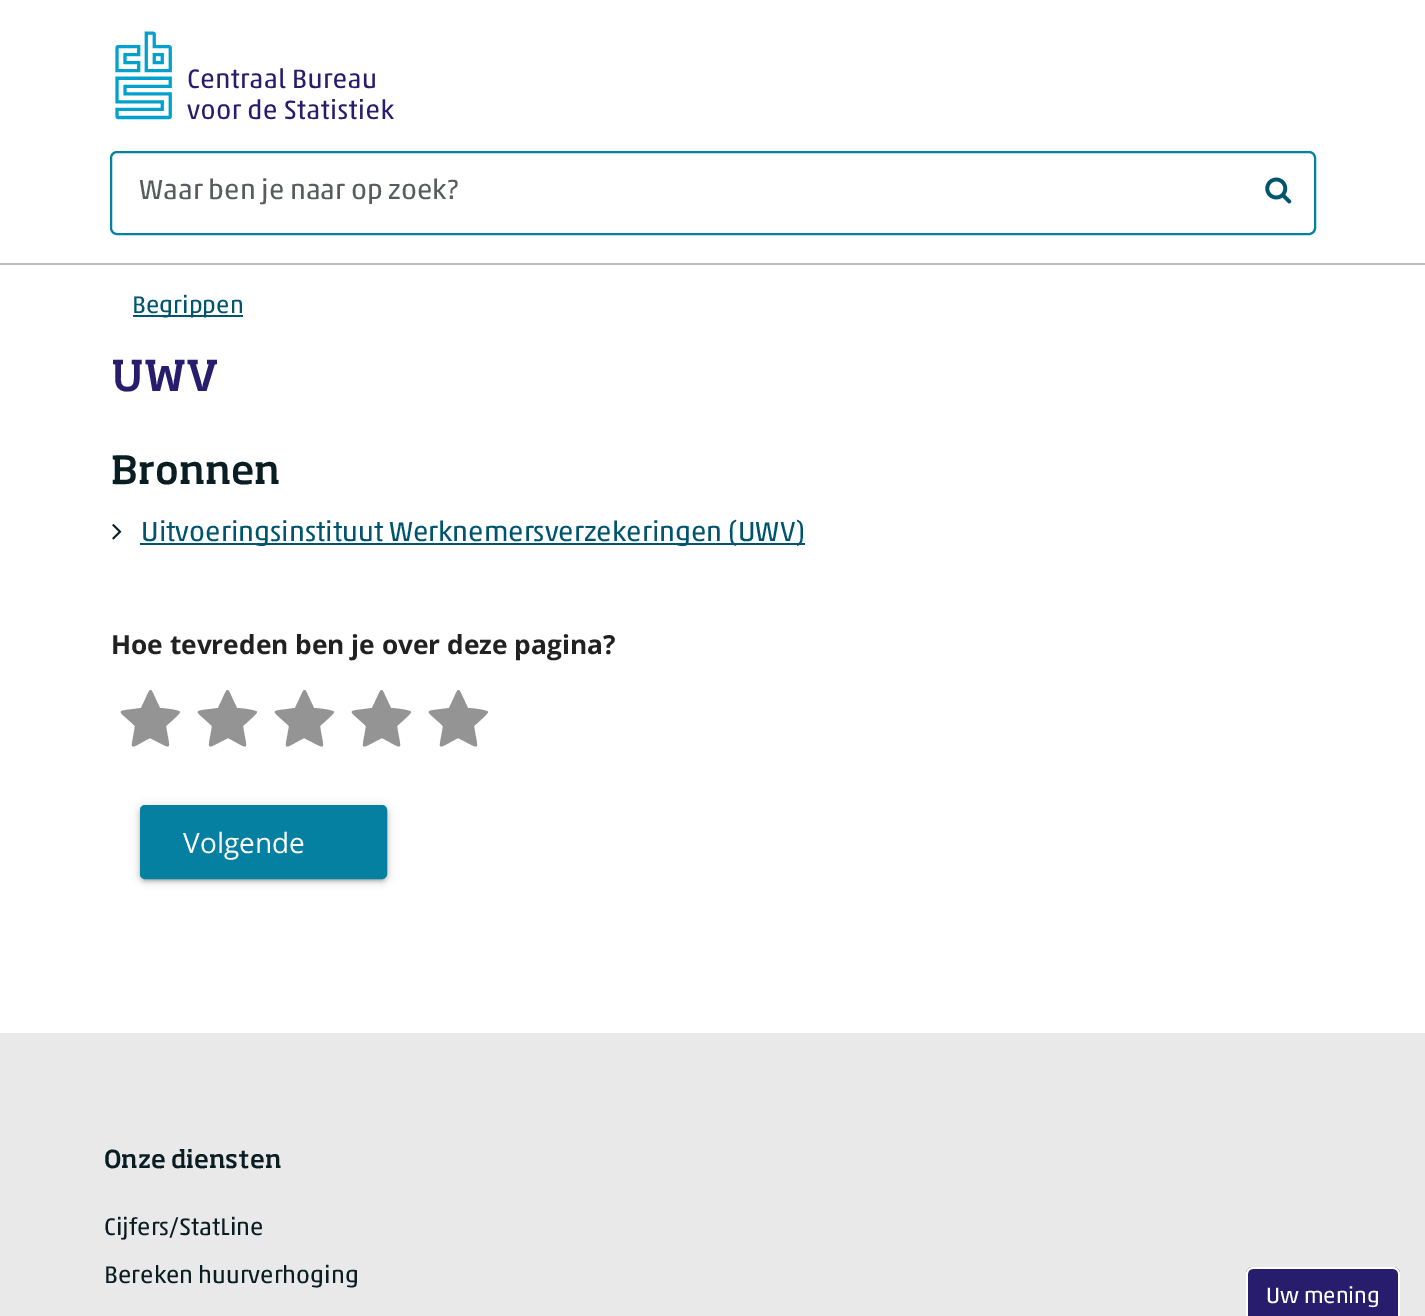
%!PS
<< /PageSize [1425 1316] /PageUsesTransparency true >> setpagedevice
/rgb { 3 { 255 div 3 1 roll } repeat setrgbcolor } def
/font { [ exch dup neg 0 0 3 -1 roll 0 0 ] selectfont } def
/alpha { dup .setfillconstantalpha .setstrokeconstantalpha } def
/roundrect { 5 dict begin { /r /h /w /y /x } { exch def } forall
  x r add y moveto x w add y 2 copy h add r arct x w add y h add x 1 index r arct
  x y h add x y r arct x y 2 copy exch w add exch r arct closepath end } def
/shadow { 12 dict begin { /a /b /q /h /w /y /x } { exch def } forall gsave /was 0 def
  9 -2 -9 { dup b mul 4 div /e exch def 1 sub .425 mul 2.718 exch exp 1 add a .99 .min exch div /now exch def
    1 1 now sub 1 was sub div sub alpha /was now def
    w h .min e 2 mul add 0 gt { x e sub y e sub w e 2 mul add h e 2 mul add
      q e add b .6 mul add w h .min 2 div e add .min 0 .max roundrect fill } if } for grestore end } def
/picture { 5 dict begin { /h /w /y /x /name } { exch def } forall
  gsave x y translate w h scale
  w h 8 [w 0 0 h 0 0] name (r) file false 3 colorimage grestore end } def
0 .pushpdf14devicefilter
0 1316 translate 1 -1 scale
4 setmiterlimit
255 255 255 rgb
0 0 1425 1316 rectfill
(img/1.rgb) 115 31 279 89 picture
5 128 161 rgb
2 setlinewidth
111 152 1204 82 6 roundrect stroke
(img/2.rgb) 1265 177 27 27 picture
189 188 188 rgb
0 263 1425 2 rectfill
0 84 112 rgb
133 315 110 2 rectfill
(img/3.rgb) 112 524 10 16 picture
140 543 665 2 rectfill
148 148 148 rgb
180 712 moveto 180 714 168 724 166 726 curveto 170 752 174 750 150 738 curveto 127 750 131 752 135 726 curveto 116 708 114 712 141 708 curveto 153 684 148 684 160 708 curveto 163 708 180 710 180 712 curveto closepath fill
257 712 moveto 257 714 245 724 243 726 curveto 247 752 251 750 228 738 curveto 204 750 208 752 212 726 curveto 193 708 191 712 218 708 curveto 230 684 225 684 237 708 curveto 240 708 257 710 257 712 curveto closepath fill
334 712 moveto 334 714 322 724 320 726 curveto 324 752 328 750 304 738 curveto 281 750 285 752 289 726 curveto 270 708 268 712 295 708 curveto 307 684 302 684 314 708 curveto 317 708 334 710 334 712 curveto closepath fill
411 712 moveto 411 714 399 724 397 726 curveto 401 752 405 750 382 738 curveto 358 750 362 752 366 726 curveto 347 708 345 712 372 708 curveto 384 684 379 684 391 708 curveto 394 708 411 710 411 712 curveto closepath fill
488 712 moveto 488 714 476 724 474 726 curveto 478 752 482 750 458 738 curveto 435 750 439 752 443 726 curveto 424 708 422 712 449 708 curveto 461 684 456 684 468 708 curveto 471 708 488 710 488 712 curveto closepath fill
0 0 0 rgb
140 807 247 73 5 4.5 0.2 shadow
144 814 239 66 2 1 0.12 shadow
140 809 247 73 5 2 0.14 shadow
5 128 161 rgb
141 806 245 72 4 roundrect gsave fill grestore
stroke
233 233 233 rgb
0 1033 1425 283 rectfill
39 29 108 rgb
1253 1267 moveto 1393 1267 lineto 1397 1267 1400 1270 1400 1274 curveto 1400 1316 lineto 1246 1316 lineto 1246 1274 lineto 1246 1270 1249 1267 1253 1267 curveto closepath fill
255 255 255 rgb
1253 1267 moveto 1393 1267 lineto 1397 1267 1400 1270 1400 1274 curveto 1400 1316 lineto 1246 1316 lineto 1246 1274 lineto 1246 1270 1249 1267 1253 1267 curveto closepath 1253 1269 moveto 1393 1269 lineto 1396 1269 1398 1271 1398 1274 curveto 1398 1316 lineto 1248 1316 lineto 1248 1274 lineto 1248 1271 1250 1269 1253 1269 curveto closepath eofill
/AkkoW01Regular-Regular 28 font
89 92 95 rgb
139 199 moveto (Waar ben je naar op zoek?) show
/AkkoW01Regular-Regular 24.4 font
0 84 112 rgb
132 313 moveto (Begrippen) show
/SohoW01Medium-Medium 42 font
39 29 108 rgb
111 391 moveto (UWV) show
/SohoW01Medium-Medium 38.5 font
9 29 35 rgb
111 484 moveto (Bronnen) show
/AkkoW01Regular-Regular 28 font
0 84 112 rgb
141 541 moveto (Uitvoeringsinstituut Werknemersverzekeringen \(UWV\)) show
/OpenSans-Bold 26.25 font
33 33 33 rgb
111 654 moveto (Hoe tevreden ben je over deze pagina?) show
/OpenSans-Regular 28 font
255 255 255 rgb
183 853 moveto (Volgende) show
/SohoW01Medium-Medium 24.4 font
9 29 35 rgb
104 1168 moveto (Onze diensten) show
/AkkoW01Regular-Regular 24.4 font
104 1235 moveto (Cijfers/StatLine) show
104 1283 moveto (Bereken huurverhoging) show
/AkkoW01Regular-Regular 22.5 font
255 255 255 rgb
1266 1303 moveto (Uw mening) show
.poppdf14devicefilter showpage
